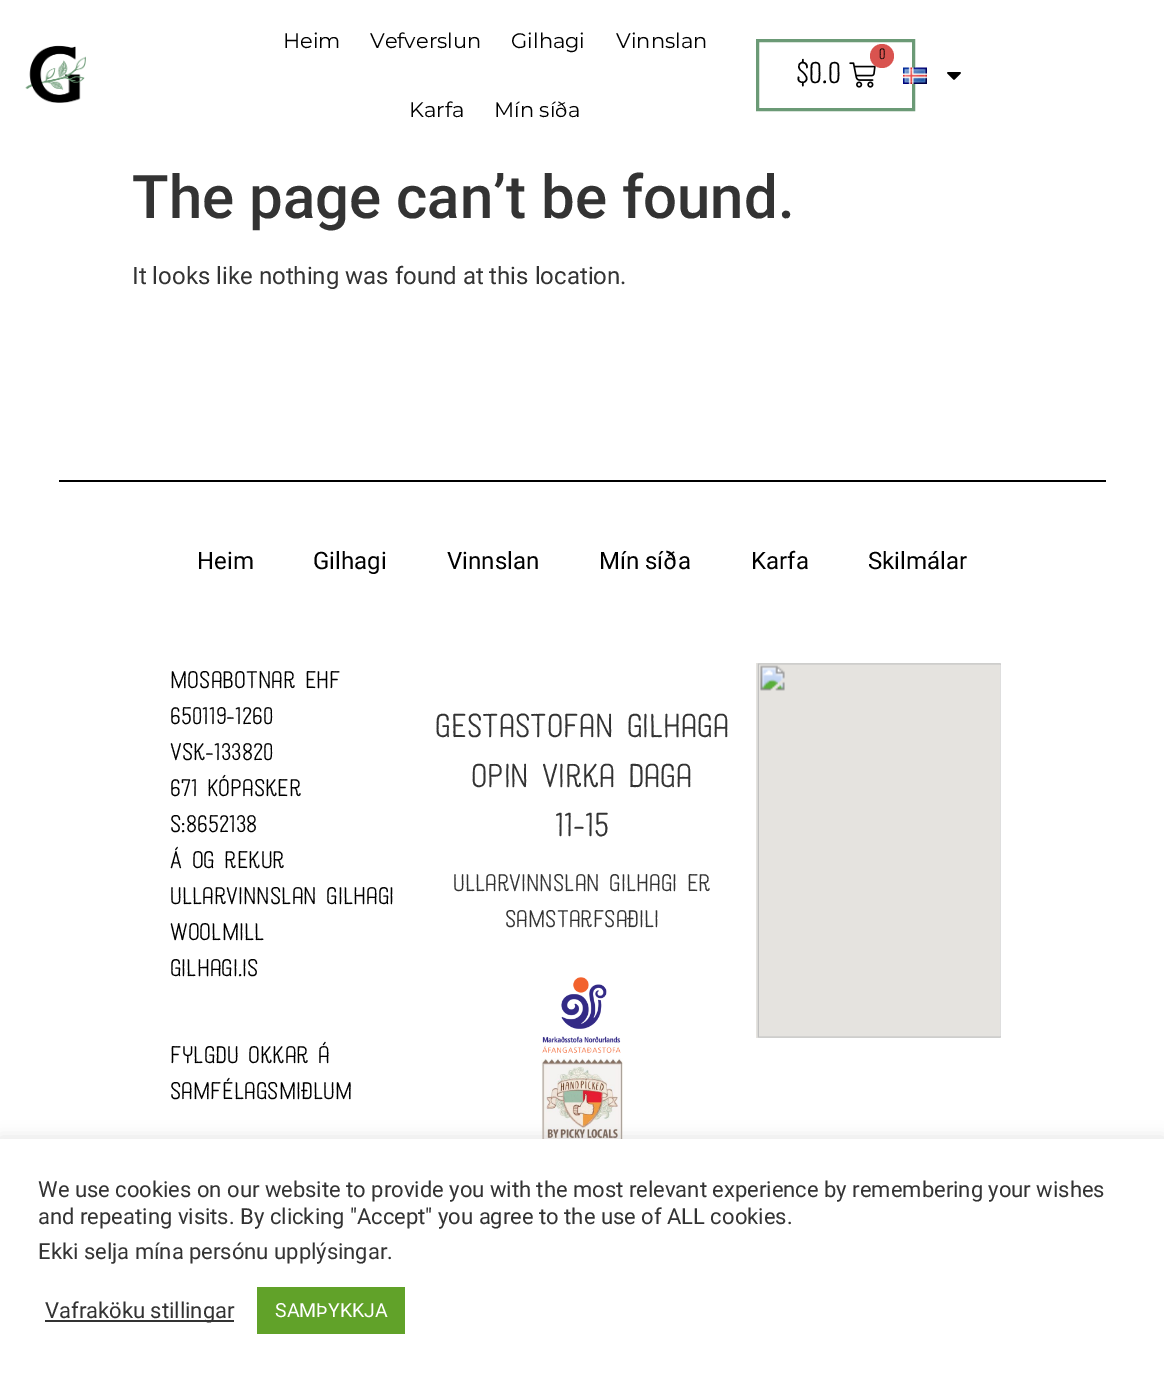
%!PS
<< /PageSize [1164 1378] /PageUsesTransparency true >> setpagedevice
/rgb { 3 { 255 div 3 1 roll } repeat setrgbcolor } def
/font { [ exch dup neg 0 0 3 -1 roll 0 0 ] selectfont } def
/alpha { dup .setfillconstantalpha .setstrokeconstantalpha } def
/circle { newpath 0 360 arc closepath } def
/roundrect { 5 dict begin { /r /h /w /y /x } { exch def } forall
  x r add y moveto x w add y 2 copy h add r arct x w add y h add x 1 index r arct
  x y h add x y r arct x y 2 copy exch w add exch r arct closepath end } def
/shadow { 12 dict begin { /a /b /q /h /w /y /x } { exch def } forall gsave /was 0 def
  9 -2 -9 { dup b mul 4 div /e exch def 1 sub .425 mul 2.718 exch exp 1 add a .99 .min exch div /now exch def
    1 1 now sub 1 was sub div sub alpha /was now def
    w h .min e 2 mul add 0 gt { x e sub y e sub w e 2 mul add h e 2 mul add
      q e add b .6 mul add w h .min 2 div e add .min 0 .max roundrect fill } if } for grestore end } def
/picture { 5 dict begin { /h /w /y /x /name } { exch def } forall
  gsave x y translate w h scale
  w h 8 [w 0 0 h 0 0] name (r) file false 3 colorimage grestore end } def
0 .pushpdf14devicefilter
0 1378 translate 1 -1 scale
4 setmiterlimit
255 255 255 rgb
0 0 1164 1378 rectfill
(img/1.rgb) 25 45 61 58 picture
107 154 118 rgb
3 setlinewidth
757.5 40.5 156 69 rectstroke
(img/2.rgb) 849 62 27 26 picture
217 83 79 rgb
882 56 12 circle fill
(img/3.rgb) 903 67 24 17 picture
(img/4.rgb) 947 72 14 8 picture
0 0 0 rgb
59 480 1047 2 rectfill
(img/5.rgb) 542 977 79 76 picture
(img/6.rgb) 541 1058 82 81 picture
(img/7.rgb) 756 663 245 375 picture
172 171 171 rgb
0 1137 1164 240 0 7.5 0.3 shadow
[
  [0 1139 1164 239 255 255 255]
  [45 1320 189 2 51 51 51]
  [257 1287 148 47 97 162 41]
] { aload pop rgb rectfill } forall
/Montserrat-Regular 21 font
0 0 0 rgb
[
  [(Heim) 283 48]
  [(Vefverslun) 370 48]
  [(Gilhagi) 511 48]
  [(Vinnslan) 616 48]
  [(Karfa) 409 117]
  [(Mín síða) 494 117]
] { aload pop moveto show } forall
/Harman-Regular 15 font
879 59 moveto (0) show
/Harman-Regular 30 font
796 83 moveto ($0.0) show
/Roboto-Medium 60 font
51 51 51 rgb
132 218 moveto (The page can’t be found.) show
/Roboto-Regular 24 font
132 284 moveto (It looks like nothing was found at this location.) show
0 0 0 rgb
[
  [(Heim) 197 569]
  [(Gilhagi) 313 569]
  [(Vinnslan) 447 569]
  [(Mín síða) 599 569]
  [(Karfa) 751 569]
  [(Skilmálar) 868 569]
] { aload pop moveto show } forall
/Harman-Regular 24 font
[
  [(Mosabotnar ehf) 170 688]
  [(650119-1260) 170 724]
  [(Vsk-133820) 170 760]
  [(671 Kópasker) 170 796]
  [(s:8652138) 170 832]
  [(Á og rekur) 170 868]
  [(Ullarvinnslan Gilhagi) 170 904]
  [(Woolmill) 170 940]
  [(Gilhagi.is) 170 976]
  [(Fylgdu okkar á) 170 1063]
  [(samfélagsmiðlum) 170 1099]
] { aload pop moveto show } forall
/Harman-Regular 33 font
51 51 51 rgb
[
  [(Gestastofan Gilhaga) 435 737]
  [(Opin virka daga) 471 787]
  [(11-15) 555 836]
] { aload pop moveto show } forall
/Harman-Regular 24 font
453 891 moveto (Ullarvinnslan Gilhagi er) show
505 927 moveto (samstarfsaðili) show
/Roboto-Regular 22 font
[
  [(We use cookies on our website to provide you with the most relevant experience by remembering your wishes) 38 1197]
  [(and repeating visits. By clicking "Accept" you agree to the use of ALL cookies.) 38 1224]
  [(Ekki selja mína persónu upplýsingar.) 38 1259]
  [(Vafraköku stillingar) 45 1318]
] { aload pop moveto show } forall
/Roboto-Regular 19.5 font
255 255 255 rgb
275 1317 moveto (SAMÞYKKJA) show
.poppdf14devicefilter showpage
